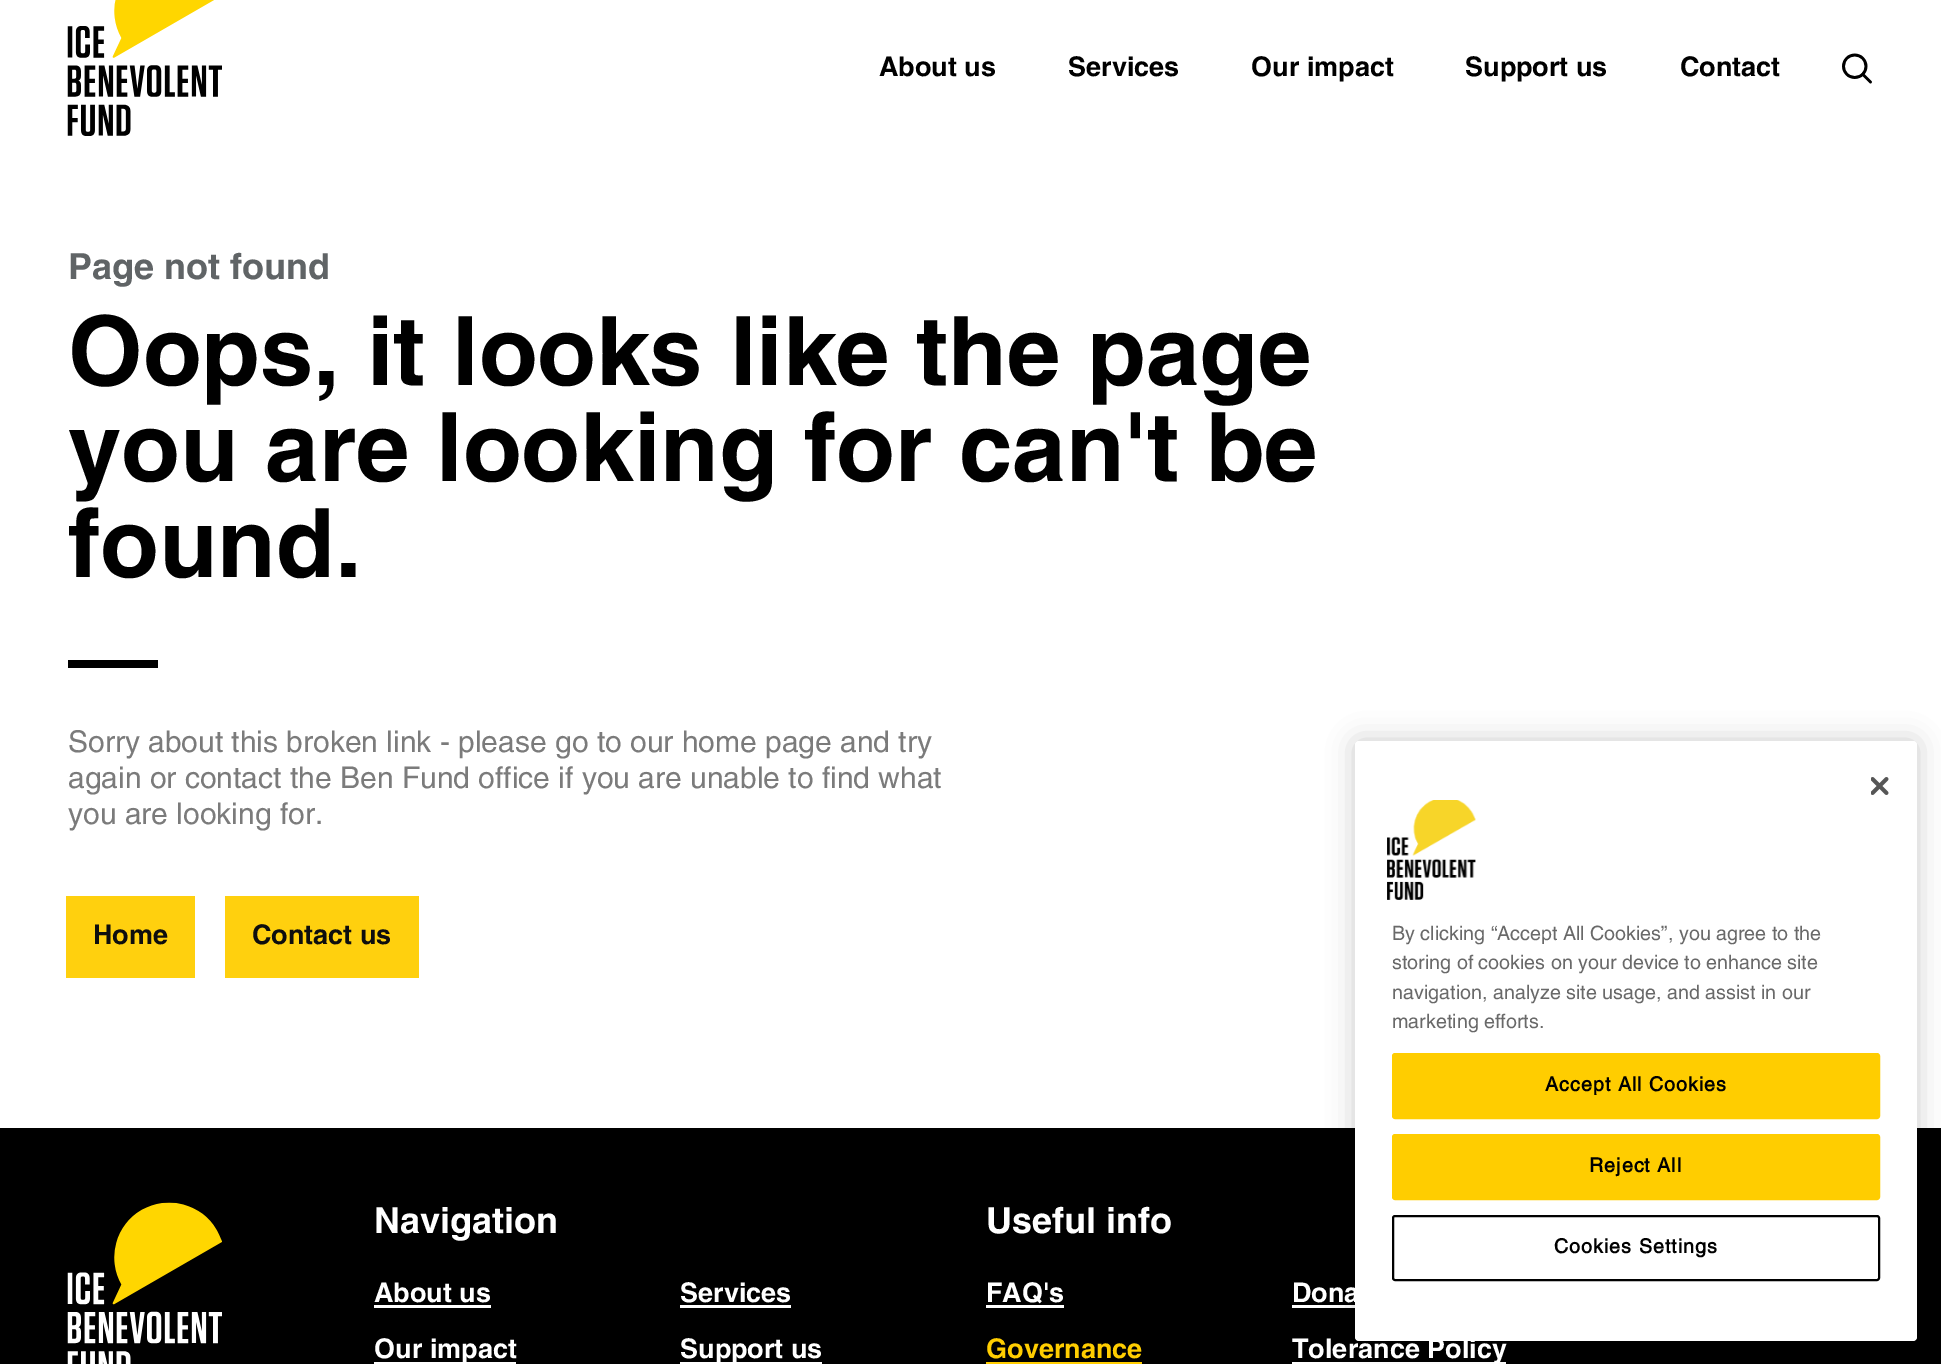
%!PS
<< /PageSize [1941 1364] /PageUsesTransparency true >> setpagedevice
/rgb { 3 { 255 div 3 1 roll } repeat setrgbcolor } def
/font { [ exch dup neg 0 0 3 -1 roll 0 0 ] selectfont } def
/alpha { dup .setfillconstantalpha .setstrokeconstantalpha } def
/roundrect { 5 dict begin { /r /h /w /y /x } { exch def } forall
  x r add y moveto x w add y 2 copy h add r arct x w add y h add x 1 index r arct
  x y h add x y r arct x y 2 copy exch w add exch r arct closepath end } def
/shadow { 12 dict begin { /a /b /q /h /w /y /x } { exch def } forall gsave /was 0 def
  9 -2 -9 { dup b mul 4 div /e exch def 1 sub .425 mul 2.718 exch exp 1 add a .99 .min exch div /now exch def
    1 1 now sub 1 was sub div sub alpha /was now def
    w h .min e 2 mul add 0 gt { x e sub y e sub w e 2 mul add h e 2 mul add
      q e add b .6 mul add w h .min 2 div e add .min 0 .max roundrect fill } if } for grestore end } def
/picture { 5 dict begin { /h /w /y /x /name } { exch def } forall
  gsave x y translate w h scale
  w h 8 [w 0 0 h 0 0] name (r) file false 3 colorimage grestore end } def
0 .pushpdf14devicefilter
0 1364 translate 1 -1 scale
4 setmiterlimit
255 255 255 rgb
0 0 1941 1364 rectfill
(img/1.rgb) 67 0 155 136 picture
(img/2.rgb) 1842 53 30 31 picture
[
  [68 660 90 8 0 0 0]
  [66 896 129 82 255 208 14]
  [225 896 194 82 255 208 14]
  [0 1128 1941 236 0 0 0]
  [1292 1305 63 3 255 255 255]
  [1292 1362 214 2 255 255 255]
] { aload pop rgb rectfill } forall
0 0 0 rgb
1355 741 562 600 4 13.5 0.2 shadow
255 255 255 rgb
1355 741 562 600 4 roundrect fill
(img/3.rgb) 1871 777 18 18 picture
(img/4.rgb) 1387 800 89 100 picture
255 205 0 rgb
1393 1054 486 64 2 roundrect gsave fill grestore
2 setlinewidth
stroke
1393 1135 486 64 2 roundrect gsave fill grestore
stroke
0 0 0 rgb
1393 1216 486 64 2 roundrect stroke
(img/5.rgb) 67 1202 155 162 picture
[
  [374 1305 117 3 255 255 255]
  [680 1305 111 3 255 255 255]
  [374 1362 142 2 255 255 255]
  [680 1362 142 2 255 255 255]
  [986 1305 78 3 255 255 255]
  [986 1362 156 2 255 205 0]
] { aload pop rgb rectfill } forall
/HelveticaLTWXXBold-Regular 27 font
0 0 0 rgb
[
  [(About us) 879 76]
  [(Services) 1068 76]
  [(Our impact) 1251 76]
  [(Support us) 1465 76]
  [(Contact) 1680 76]
] { aload pop moveto show } forall
/HelveticaLTWXXBold-Regular 36 font
96 100 102 rgb
68 279 moveto (Page not found) show
/HelveticaLTWXXBold-Regular 96 font
0 0 0 rgb
[
  [(Oops, it looks like the page) 68 385]
  [(you are looking for can't be) 68 481]
  [(found.) 68 577]
] { aload pop moveto show } forall
/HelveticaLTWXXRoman-Regular 30 font
123 123 123 rgb
[
  [(Sorry about this broken link - please go to our home page and try) 68 752]
  [(again or contact the Ben Fund office if you are unable to find what) 68 788]
  [(you are looking for.) 68 824]
] { aload pop moveto show } forall
/HelveticaLTWXXBold-Regular 27 font
14 14 14 rgb
93 944 moveto (Home) show
252 944 moveto (Contact us) show
/HelveticaLTWXXRoman-Regular 19.7 font
105 105 105 rgb
[
  [(By clicking “Accept All Cookies”, you agree to the) 1392 940]
  [(storing of cookies on your device to enhance site) 1392 969]
  [(navigation, analyze site usage, and assist in our) 1392 999]
  [(marketing efforts.) 1392 1028]
] { aload pop moveto show } forall
/HelveticaLTWXXRoman-Bold 19.7 font
0 0 0 rgb
1545 1091 moveto 1 0 (Accept All Cookies) ashow
1589 1172 moveto 1 0 (Reject All) ashow
1554 1253 moveto 1 0 (Cookies Settings) ashow
/HelveticaLTWXXBold-Regular 36 font
255 255 255 rgb
374 1233 moveto (Navigation) show
/HelveticaLTWXXBold-Regular 27 font
[
  [(About us) 374 1302]
  [(Services) 680 1302]
  [(Our impact) 374 1358]
  [(Support us) 680 1358]
] { aload pop moveto show } forall
/HelveticaLTWXXBold-Regular 36 font
986 1233 moveto (Useful info) show
/HelveticaLTWXXBold-Regular 27 font
986 1302 moveto (FAQ's) show
1292 1302 moveto (Dona) show
255 205 0 rgb
986 1358 moveto (Governance) show
255 255 255 rgb
1292 1358 moveto (Tolerance Policy) show
.poppdf14devicefilter showpage
